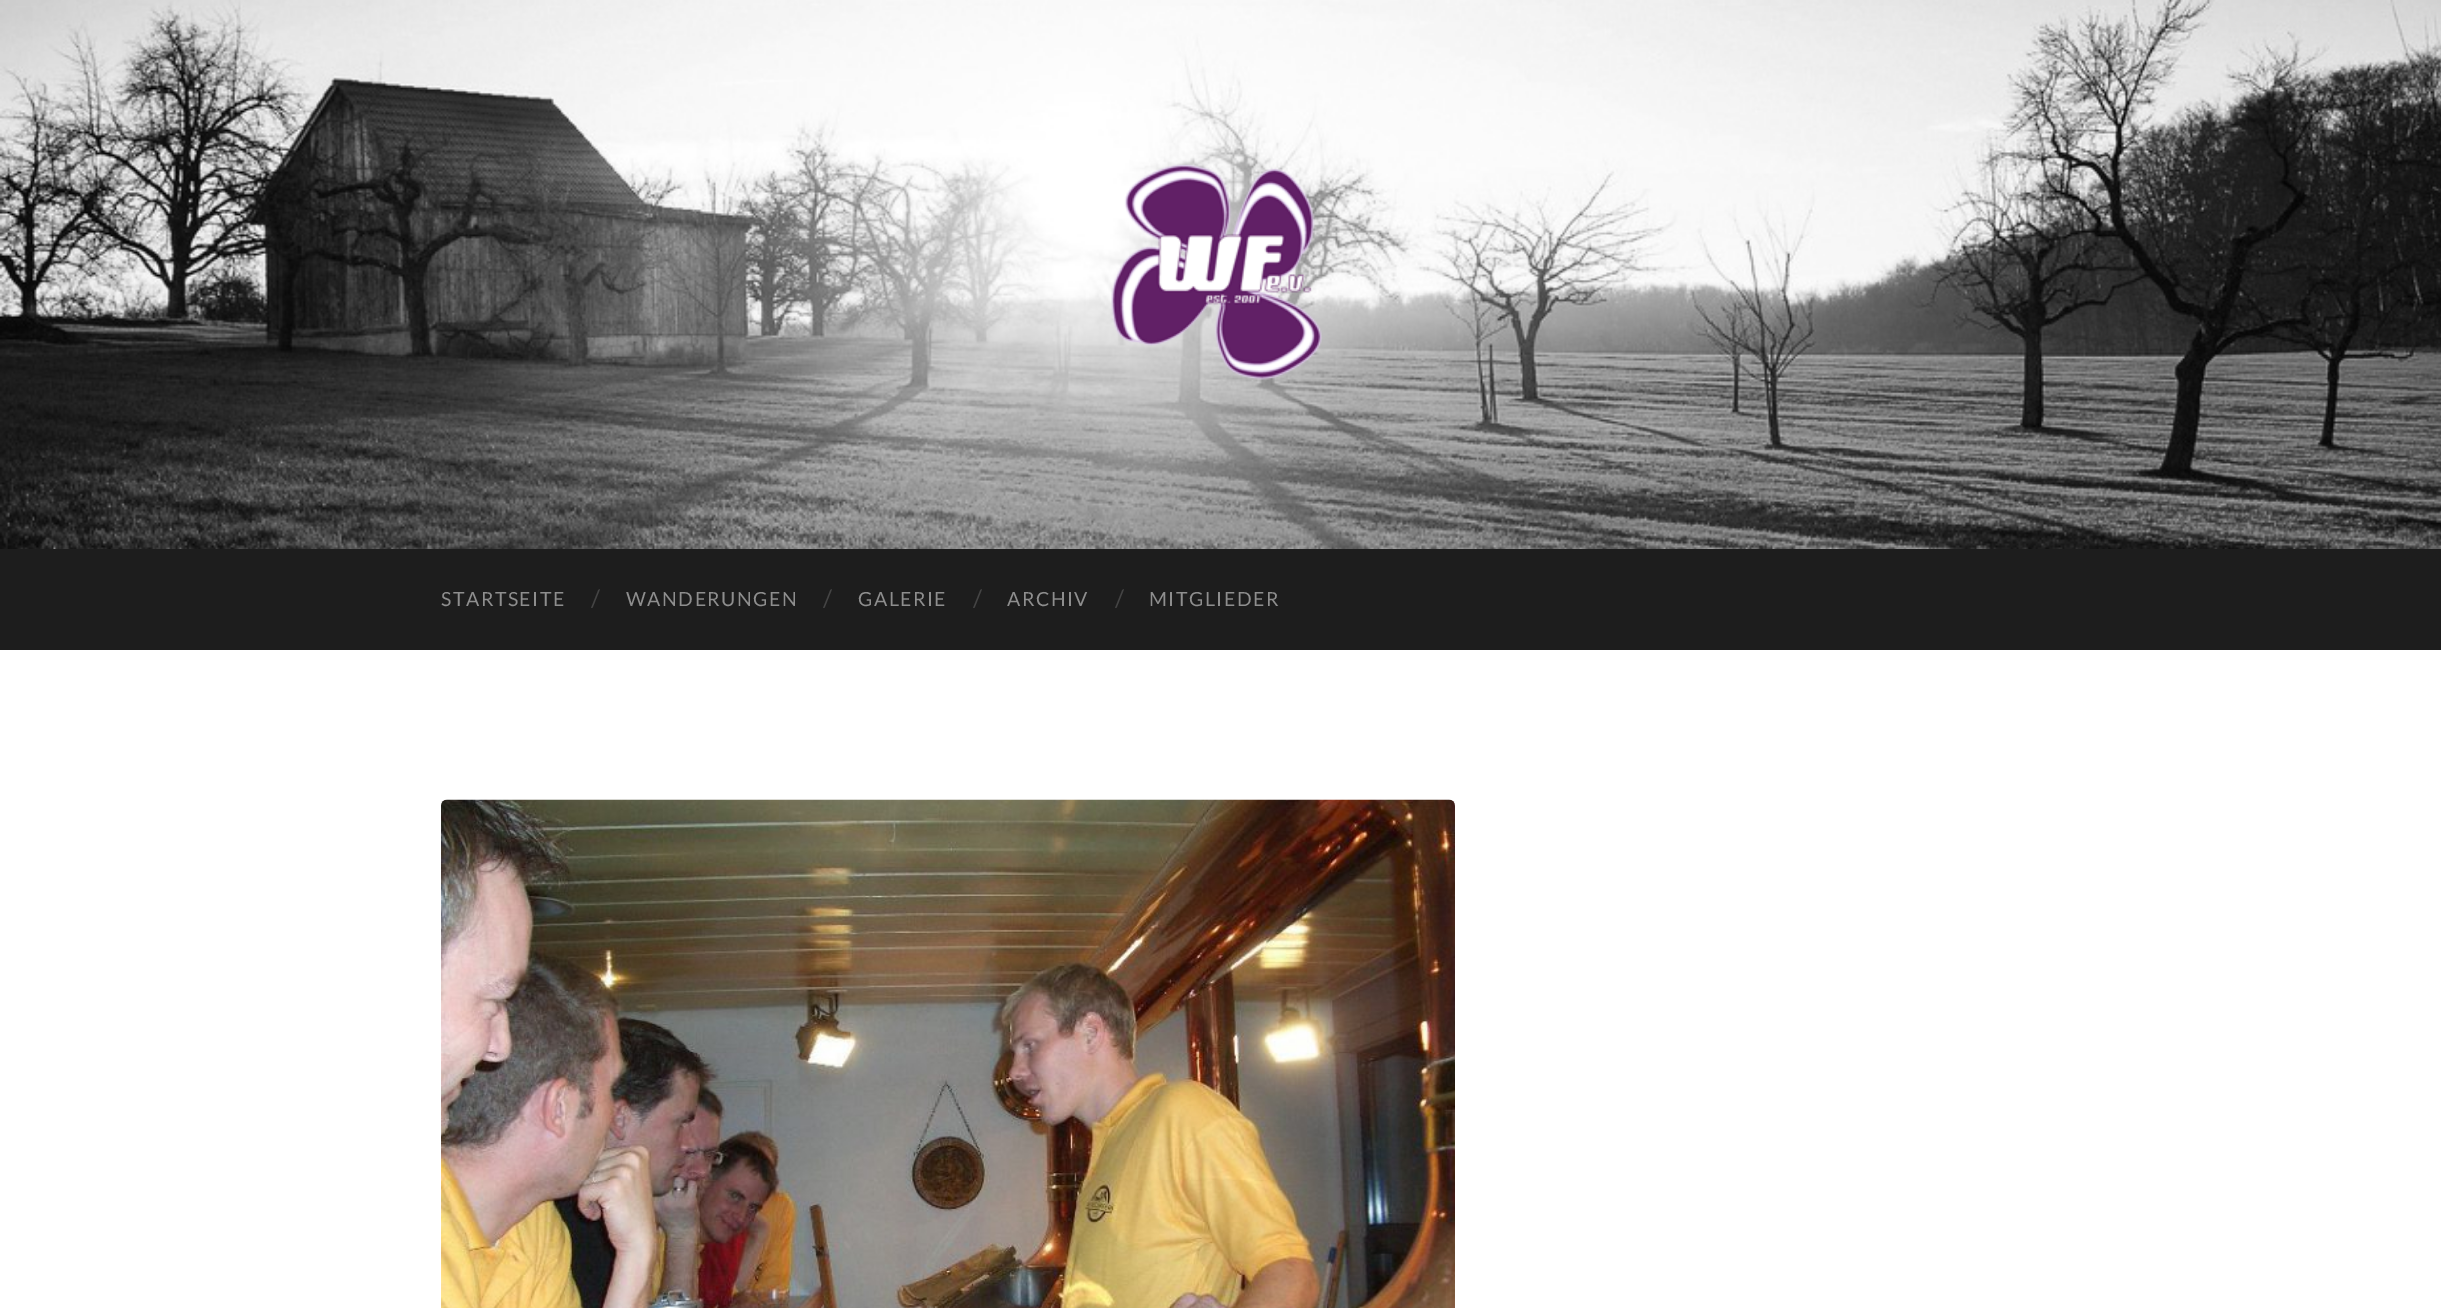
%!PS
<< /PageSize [2441 1308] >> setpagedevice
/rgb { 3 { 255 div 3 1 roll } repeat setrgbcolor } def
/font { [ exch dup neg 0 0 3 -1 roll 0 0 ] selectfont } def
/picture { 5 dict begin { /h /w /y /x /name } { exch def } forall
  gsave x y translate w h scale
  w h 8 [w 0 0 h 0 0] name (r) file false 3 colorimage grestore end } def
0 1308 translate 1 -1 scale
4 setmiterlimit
255 255 255 rgb
0 0 2441 1308 rectfill
(img/1.rgb) 0 0 2441 549 picture
(img/2.rgb) 1111 164 211 216 picture
29 29 29 rgb
0 549 2441 101 rectfill
(img/3.rgb) 441 799 1014 509 picture
/Lato-Regular 19.5 font
142 142 142 rgb
441 606 moveto 1.5 0 (STARTSEITE) ashow
/Lato-Regular 24 font
68 68 68 rgb
591 607 moveto (/) show
/Lato-Regular 19.5 font
142 142 142 rgb
626 606 moveto 1.5 0 (WANDERUNGEN) ashow
/Lato-Regular 24 font
68 68 68 rgb
823 607 moveto (/) show
/Lato-Regular 19.5 font
142 142 142 rgb
858 606 moveto 1.5 0 (GALERIE) ashow
/Lato-Regular 24 font
68 68 68 rgb
973 607 moveto (/) show
/Lato-Regular 19.5 font
142 142 142 rgb
1007 606 moveto 1.5 0 (ARCHIV) ashow
/Lato-Regular 24 font
68 68 68 rgb
1115 607 moveto (/) show
/Lato-Regular 19.5 font
142 142 142 rgb
1149 606 moveto 1.5 0 (MITGLIEDER) ashow
showpage
